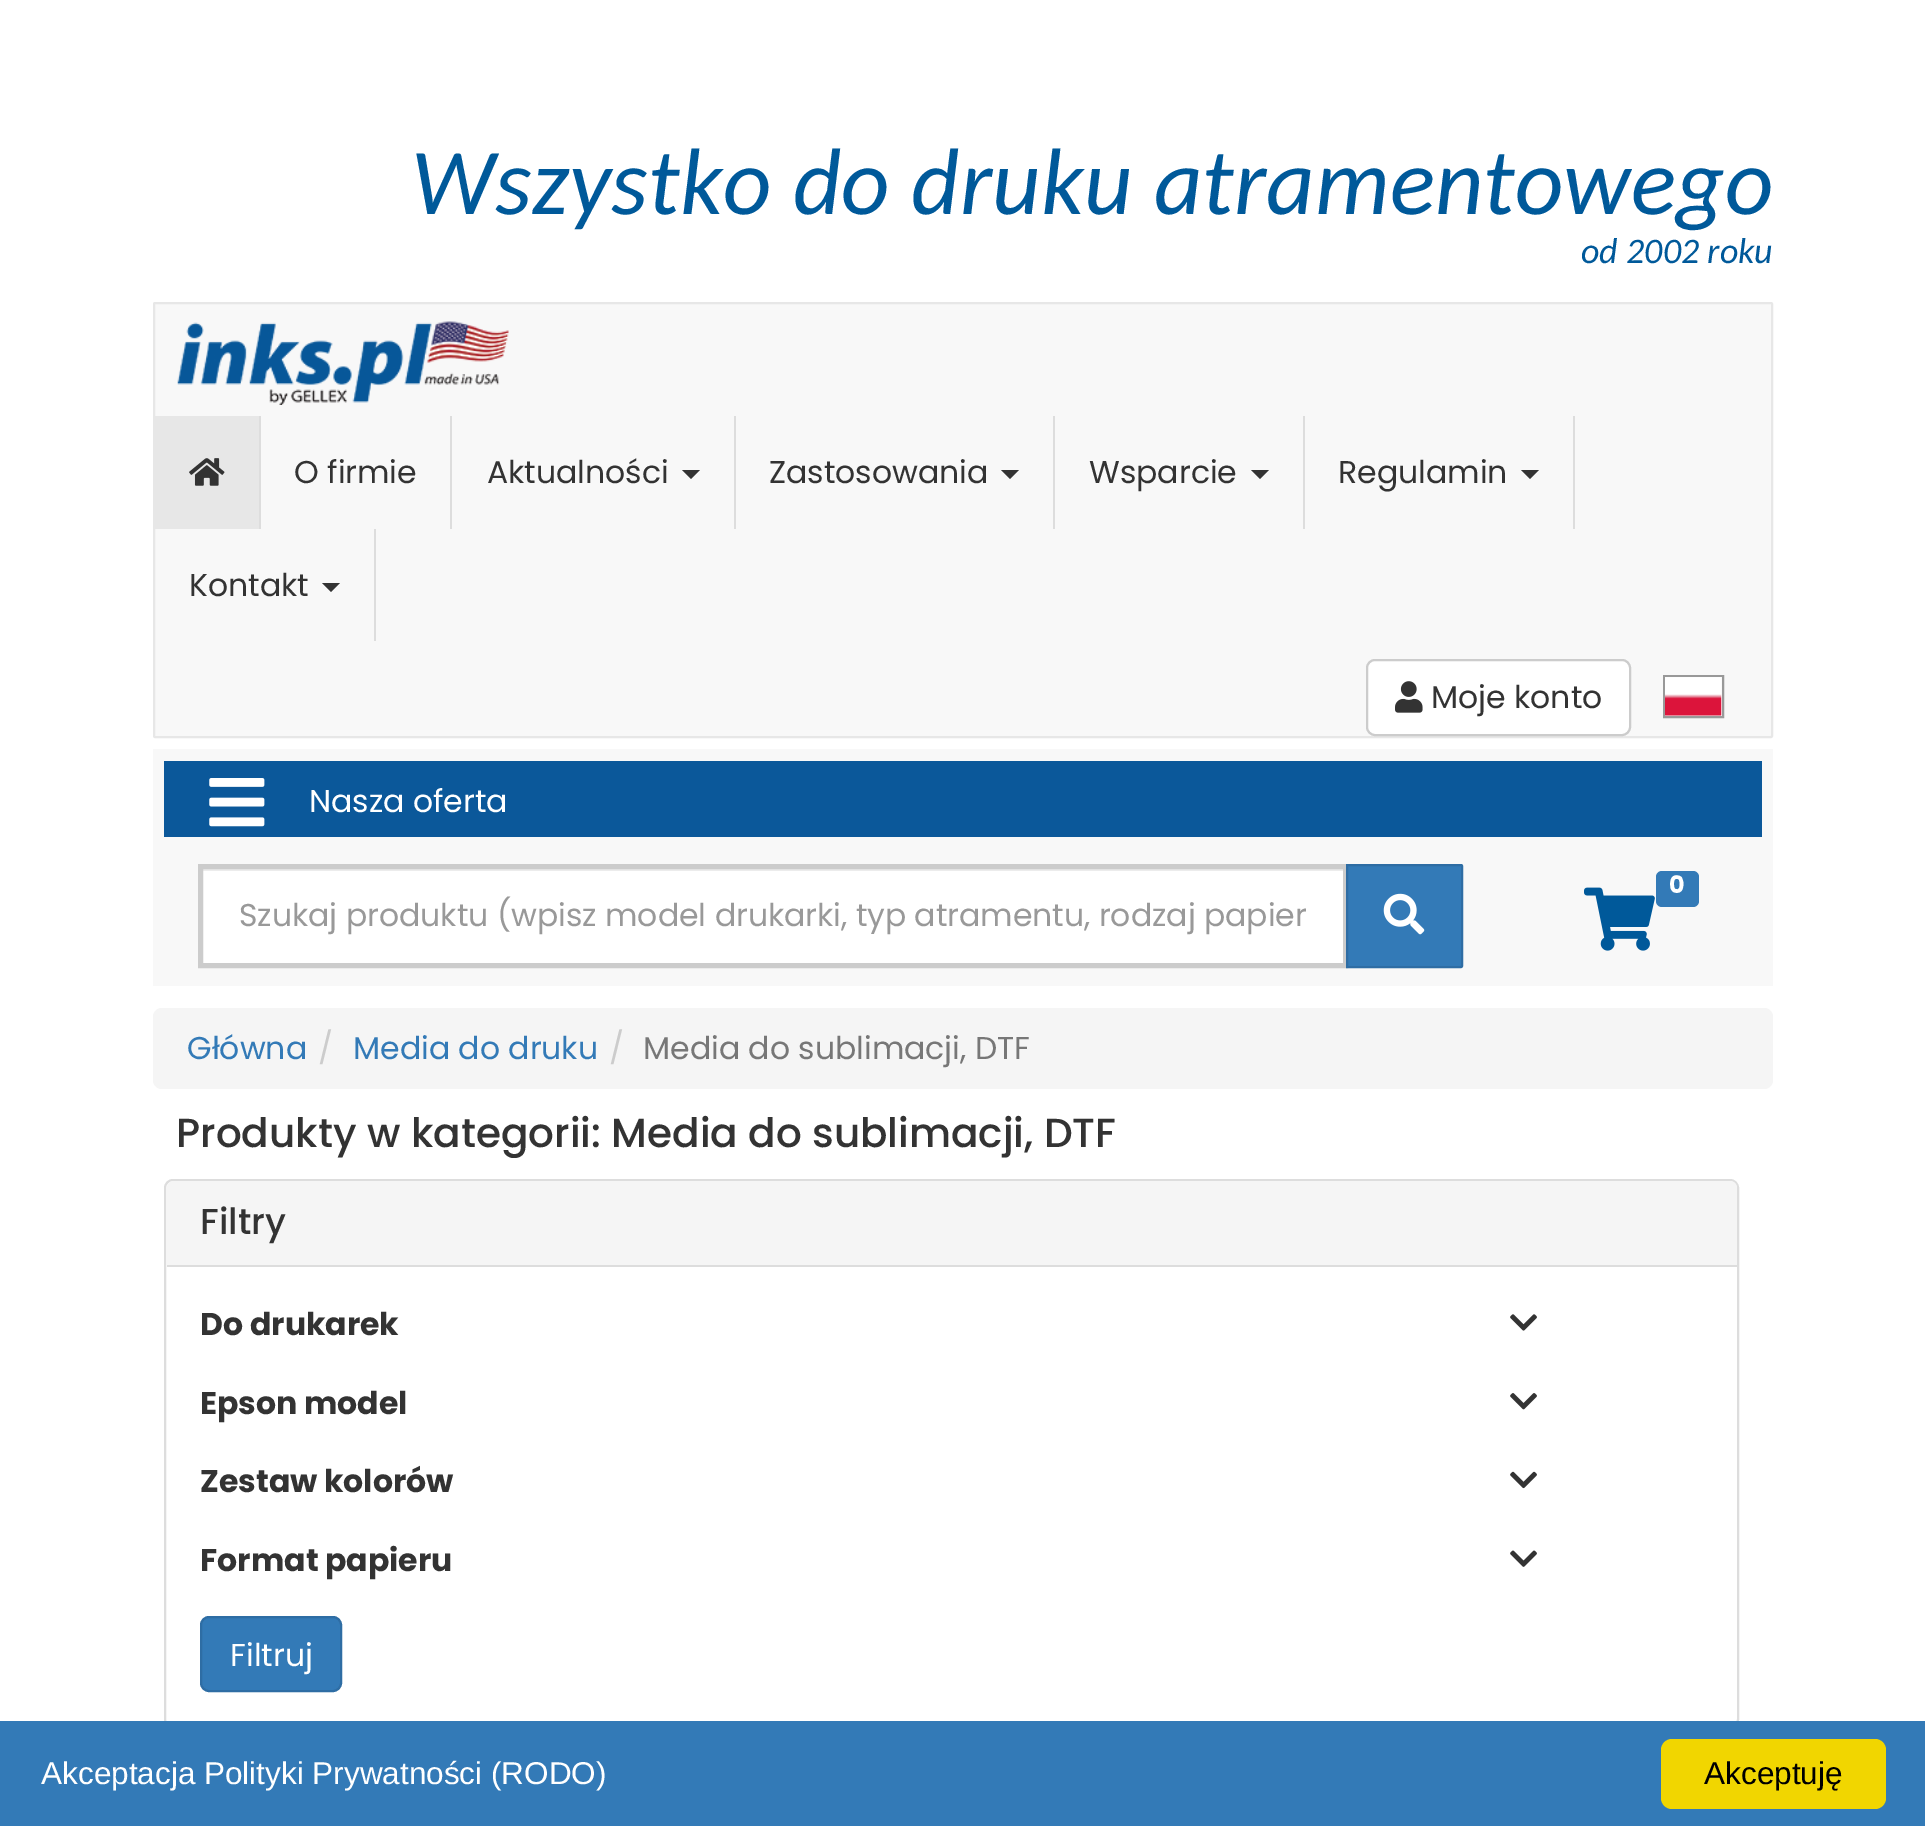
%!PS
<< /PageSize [1925 1826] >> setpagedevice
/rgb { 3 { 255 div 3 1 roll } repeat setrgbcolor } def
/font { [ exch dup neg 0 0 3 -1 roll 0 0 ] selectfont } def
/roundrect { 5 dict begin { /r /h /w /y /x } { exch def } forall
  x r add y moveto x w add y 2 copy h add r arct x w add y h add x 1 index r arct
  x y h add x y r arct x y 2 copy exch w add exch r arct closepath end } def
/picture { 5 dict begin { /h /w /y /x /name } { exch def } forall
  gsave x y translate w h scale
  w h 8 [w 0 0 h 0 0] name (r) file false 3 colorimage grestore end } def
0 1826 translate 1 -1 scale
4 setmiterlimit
255 255 255 rgb
0 0 1925 1826 rectfill
248 248 248 rgb
154 303 1618 434 1 roundrect gsave fill grestore
231 231 231 rgb
2 setlinewidth
stroke
(img/1.rgb) 177 321 332 84 picture
221 221 221 rgb
259 416 2 113 rectfill
231 231 231 rgb
155 416 104 113 rectfill
(img/2.rgb) 189 458 36 28 picture
221 221 221 rgb
450 416 2 113 rectfill
734 416 2 113 rectfill
51 51 51 rgb
682 470 moveto 700 470 lineto 691 479 lineto closepath fill
221 221 221 rgb
1053 416 2 113 rectfill
51 51 51 rgb
1001 470 moveto 1019 470 lineto 1010 479 lineto closepath fill
221 221 221 rgb
1303 416 2 113 rectfill
51 51 51 rgb
1251 470 moveto 1269 470 lineto 1260 479 lineto closepath fill
221 221 221 rgb
1573 416 2 113 rectfill
51 51 51 rgb
1521 470 moveto 1539 470 lineto 1530 479 lineto closepath fill
221 221 221 rgb
374 529 2 112 rectfill
51 51 51 rgb
322 583 moveto 340 583 lineto 331 592 lineto closepath fill
255 255 255 rgb
1367 660 263 75 8 roundrect gsave fill grestore
204 204 204 rgb
stroke
(img/3.rgb) 1395 681 28 32 picture
153 153 153 rgb
1664 676 59 41 rectstroke
(img/4.rgb) 1665 677 57 39 picture
248 248 248 rgb
153 749 1620 237 rectfill
11 88 154 rgb
164 761 1598 76 rectfill
(img/5.rgb) 209 778 56 49 picture
51 122 183 rgb
1656 871 43 36 6 roundrect fill
(img/6.rgb) 1584 887 71 64 picture
255 255 255 rgb
200 864 moveto 1348 864 lineto 1348 968 lineto 200 968 lineto 199 968 198 967 198 966 curveto 198 866 lineto 198 865 199 864 200 864 curveto closepath fill
236 236 236 rgb
203 869 1140 2 rectfill
204 204 204 rgb
5 setlinewidth
200.5 866.5 1145 99 rectstroke
51 122 183 rgb
1347 865 moveto 1461 865 lineto 1461.5 865 1462 865.5 1462 866 curveto 1462 966 lineto 1462 966.5 1461.5 967 1461 967 curveto 1347 967 lineto closepath gsave fill grestore
46 109 164 rgb
2 setlinewidth
stroke
(img/7.rgb) 1383 893 42 42 picture
245 245 245 rgb
153 1008 1620 81 9 roundrect fill
221 221 221 rgb
165 1180 1573 547 8 roundrect stroke
245 245 245 rgb
174 1181 moveto 1730 1181 lineto 1734 1181 1737 1184 1737 1188 curveto 1737 1267 lineto 167 1267 lineto 167 1188 lineto 167 1184 170 1181 174 1181 curveto closepath fill
221 221 221 rgb
167 1265 1570 2 rectfill
(img/8.rgb) 1510 1314 27 17 picture
(img/9.rgb) 1510 1393 27 17 picture
(img/10.rgb) 1510 1471 27 18 picture
(img/11.rgb) 1510 1550 27 17 picture
51 122 183 rgb
201 1617 140 74 8 roundrect gsave fill grestore
46 109 164 rgb
stroke
51 122 183 rgb
0 1721 1925 105 rectfill
241 214 0 rgb
1661 1739 225 70 11 roundrect fill
/Carlito-Italic 94.5 font
0 89 154 rgb
411 214 moveto (Wszystko do druku atramentowego) show
/Carlito-Italic 36 font
1581 263 moveto (od 2002 roku) show
/Poppins-Regular 31.5 font
51 51 51 rgb
[
  [(O firmie) 294 483]
  [(Aktualności) 487 483]
  [(Zastosowania) 769 483]
  [(Wsparcie) 1089 483]
  [(Regulamin) 1338 483]
  [(Kontakt) 189 596]
  [(Moje konto) 1431 708]
] { aload pop moveto show } forall
255 255 255 rgb
309 812 moveto (Nasza oferta) show
/Poppins-Bold 24 font
1669 893 moveto (0) show
/Poppins-Regular 31.5 font
153 153 153 rgb
239 926 moveto (Szukaj produktu \(wpisz model drukarki, typ atramentu, rodzaj papier) show
51 122 183 rgb
187 1059 moveto (Główna) show
204 204 204 rgb
318 1059 moveto (/) show
51 122 183 rgb
353 1059 moveto (Media do druku) show
204 204 204 rgb
609 1059 moveto (/) show
119 119 119 rgb
643 1059 moveto (Media do sublimacji, DTF) show
/Poppins-Medium 40.5 font
51 51 51 rgb
176 1147 moveto (Produkty w kategorii: Media do sublimacji, DTF) show
/Poppins-Medium 36 font
200 1234 moveto (Filtry) show
/Poppins-Bold 31.5 font
[
  [(Do drukarek) 200 1335]
  [(Epson model) 200 1414]
  [(Zestaw kolorów) 200 1492]
  [(Format papieru) 200 1571]
] { aload pop moveto show } forall
/Poppins-Regular 31.5 font
255 255 255 rgb
230 1666 moveto (Filtruj) show
/LiberationSans-Regular 31.5 font
41 1784 moveto (Akceptacja Polityki Prywatności \(RODO\)) show
0 0 0 rgb
1704 1784 moveto (Akceptuję) show
showpage
